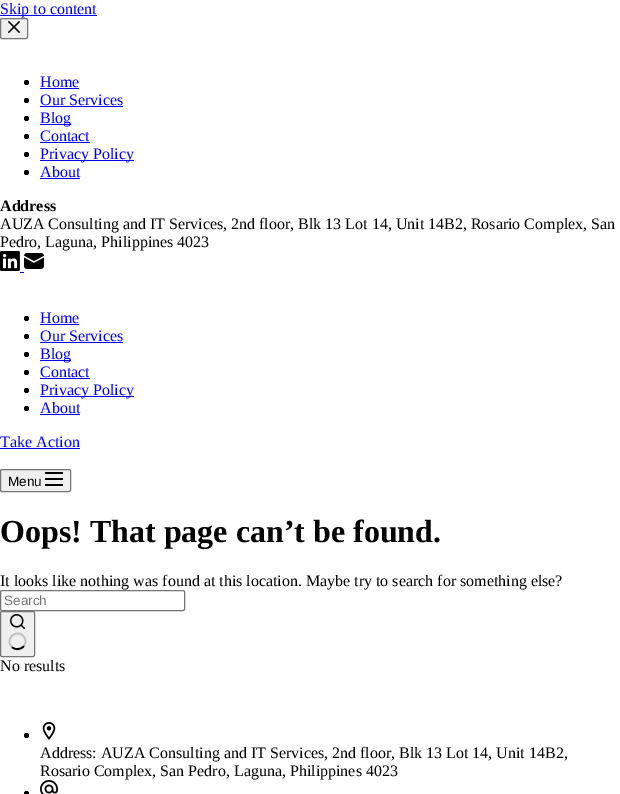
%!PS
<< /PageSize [620 794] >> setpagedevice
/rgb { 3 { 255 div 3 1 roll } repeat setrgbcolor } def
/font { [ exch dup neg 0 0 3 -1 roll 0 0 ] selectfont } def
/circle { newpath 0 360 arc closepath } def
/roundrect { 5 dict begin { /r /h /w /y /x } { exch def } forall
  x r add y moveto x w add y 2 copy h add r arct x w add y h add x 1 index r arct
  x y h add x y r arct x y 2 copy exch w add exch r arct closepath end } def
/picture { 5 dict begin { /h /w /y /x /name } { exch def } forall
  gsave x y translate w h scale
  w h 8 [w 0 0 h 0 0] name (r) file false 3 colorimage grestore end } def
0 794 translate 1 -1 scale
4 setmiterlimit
255 255 255 rgb
0 0 620 794 rectfill
0 0 238 rgb
0 15 97 1 rectfill
239 239 239 rgb
0.5 18.5 27 20 1.5 roundrect gsave fill grestore
118 118 118 rgb
stroke
(img/1.rgb) 8 21 12 12 picture
0 0 0 rgb
26.5 82.5 2.5 circle fill
0 0 238 rgb
40 88 39 1 rectfill
0 0 0 rgb
26.5 100.5 2.5 circle fill
0 0 238 rgb
40 106 83 1 rectfill
0 0 0 rgb
26.5 118.5 2.5 circle fill
0 0 238 rgb
40 124 31 1 rectfill
0 0 0 rgb
26.5 136.5 2.5 circle fill
0 0 238 rgb
40 142 50 1 rectfill
0 0 0 rgb
26.5 154.5 2.5 circle fill
0 0 238 rgb
40 160 94 1 rectfill
0 0 0 rgb
26.5 172.5 2.5 circle fill
0 0 238 rgb
40 178 40 1 rectfill
(img/2.rgb) 0 251 20 20 picture
(img/3.rgb) 24 253 20 16 picture
20 272 4 1 rectfill
0 0 0 rgb
26.5 318.5 2.5 circle fill
0 0 238 rgb
40 324 39 1 rectfill
0 0 0 rgb
26.5 336.5 2.5 circle fill
0 0 238 rgb
40 342 83 1 rectfill
0 0 0 rgb
26.5 354.5 2.5 circle fill
0 0 238 rgb
40 360 31 1 rectfill
0 0 0 rgb
26.5 372.5 2.5 circle fill
0 0 238 rgb
40 378 50 1 rectfill
0 0 0 rgb
26.5 390.5 2.5 circle fill
0 0 238 rgb
40 396 94 1 rectfill
0 0 0 rgb
26.5 408.5 2.5 circle fill
0 0 238 rgb
40 414 40 1 rectfill
0 448 80 1 rectfill
239 239 239 rgb
0.5 469.5 70 22 1.5 roundrect gsave fill grestore
118 118 118 rgb
stroke
0 0 0 rgb
45 472 18 2 1 roundrect fill
45 478 18 2 1 roundrect fill
45 484 18 2 1 roundrect fill
118 118 118 rgb
0.5 590.5 184 20 1.5 roundrect stroke
239 239 239 rgb
0.5 611.5 34 45 1.5 roundrect gsave fill grestore
118 118 118 rgb
stroke
(img/4.rgb) 10 614 15 15 picture
191 191 191 rgb
1.6 setlinewidth
17.5 641.5 8 circle stroke
0 0 0 rgb
1 setlinecap
23.5 646.5 moveto 20.5 649.5 15.5 650 12.5 647.5 curveto stroke
26.5 735.5 2.5 circle fill
(img/5.rgb) 42 722 14 18 picture
26.5 793.5 2.5 circle fill
(img/6.rgb) 40 780 18 14 picture
/LiberationSerif-Regular 16 font
0 0 238 rgb
[
  [(Skip to content) 0 14]
  [(Home) 40 87]
  [(Our Services) 40 105]
  [(Blog) 40 123]
  [(Contact) 40 141]
  [(Privacy Policy) 40 159]
  [(About) 40 177]
] { aload pop moveto show } forall
/LiberationSerif-Bold 16 font
0 0 0 rgb
0 211 moveto (Address) show
/LiberationSerif-Regular 16 font
0 229 moveto (AUZA Consulting and IT Services, 2nd floor, Blk 13 Lot 14, Unit 14B2, Rosario Complex, San) show
0 247 moveto (Pedro, Laguna, Philippines 4023) show
0 0 238 rgb
[
  [(Home) 40 323]
  [(Our Services) 40 341]
  [(Blog) 40 359]
  [(Contact) 40 377]
  [(Privacy Policy) 40 395]
  [(About) 40 413]
  [(Take Action) 0 447]
] { aload pop moveto show } forall
/LiberationSans-Regular 13.5 font
0 0 0 rgb
8 486 moveto (Menu) show
/LiberationSerif-Bold 32 font
0 542 moveto (Oops! That page can’t be found.) show
/LiberationSerif-Regular 16 font
0 586 moveto (It looks like nothing was found at this location. Maybe try to search for something else?) show
/LiberationSans-Regular 13.5 font
117 117 117 rgb
4 605 moveto (Search) show
/LiberationSerif-Regular 16 font
0 0 0 rgb
[
  [(No results) 0 671]
  [(Address: AUZA Consulting and IT Services, 2nd floor, Blk 13 Lot 14, Unit 14B2,) 40 758]
  [(Rosario Complex, San Pedro, Laguna, Philippines 4023) 40 776]
] { aload pop moveto show } forall
showpage
